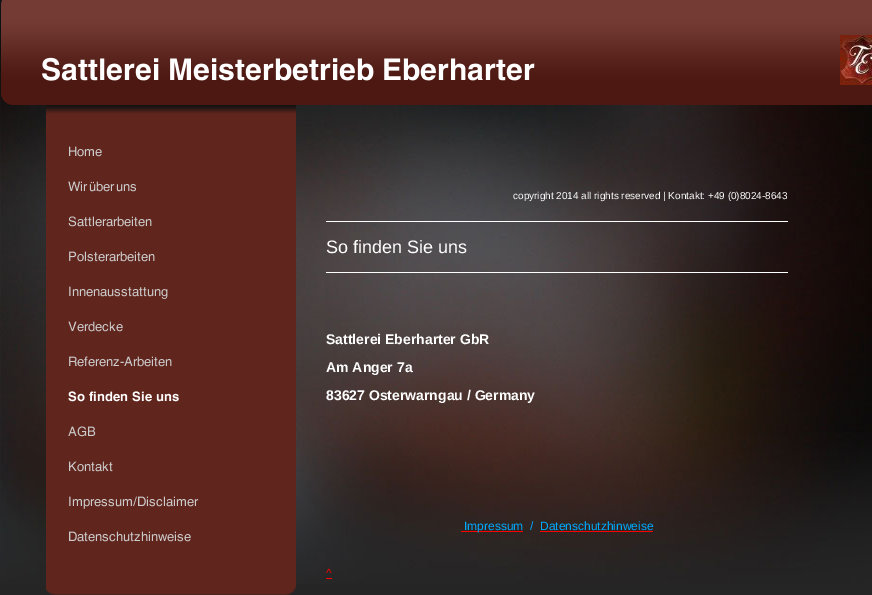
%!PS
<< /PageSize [872 595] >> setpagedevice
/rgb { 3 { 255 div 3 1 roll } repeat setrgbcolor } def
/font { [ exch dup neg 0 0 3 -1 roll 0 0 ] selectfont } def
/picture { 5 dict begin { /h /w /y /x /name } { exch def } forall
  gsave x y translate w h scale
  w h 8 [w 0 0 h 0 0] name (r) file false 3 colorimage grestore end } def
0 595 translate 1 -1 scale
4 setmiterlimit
37 37 37 rgb
0 0 872 595 rectfill
(img/1.rgb) 0 0 872 584 picture
(img/2.rgb) 1 0 15 105 picture
(img/3.rgb) 16 0 856 105 picture
(img/4.rgb) 42 57 493 24 picture
(img/5.rgb) 840 35 32 50 picture
(img/6.rgb) 46 105 250 10 picture
96 37 29 rgb
46 115 250 470 rectfill
(img/7.rgb) 69 146 33 11 picture
(img/8.rgb) 68 181 68 11 picture
(img/9.rgb) 68 216 84 11 picture
(img/10.rgb) 69 251 86 11 picture
(img/11.rgb) 69 286 99 13 picture
(img/12.rgb) 68 321 55 11 picture
(img/13.rgb) 69 356 103 11 picture
(img/14.rgb) 68 391 111 11 picture
(img/15.rgb) 68 426 28 11 picture
(img/16.rgb) 69 461 44 11 picture
(img/17.rgb) 69 496 130 13 picture
(img/18.rgb) 69 531 122 11 picture
(img/19.rgb) 46 585 250 10 picture
[
  [326 221 462 1 255 255 255]
  [326 272 462 1 255 255 255]
  [461 531 62 1 255 0 0]
  [540 531 113 1 255 0 0]
  [326 578 6 1 255 0 0]
] { aload pop rgb rectfill } forall
/LiberationSans-Regular 10 font
255 255 255 rgb
513 199 moveto (copyright 2014 all rights reserved | Kontakt: +49 \(0\)8024-8643) show
/LiberationSans-Regular 18 font
326 253 moveto (So finden Sie uns) show
/LiberationSans-Bold 14 font
[
  [(Sattlerei Eberharter GbR) 326 344]
  [(Am Anger 7a) 326 372]
  [(83627 Osterwarngau / Germany) 326 400]
] { aload pop moveto show } forall
/LiberationSans-Regular 12 font
0 170 255 rgb
[
  [(Impressum) 464 530]
  [(/) 530 530]
  [(Datenschutzhinweise) 540 530]
] { aload pop moveto show } forall
255 0 0 rgb
326 577 moveto (^) show
showpage
